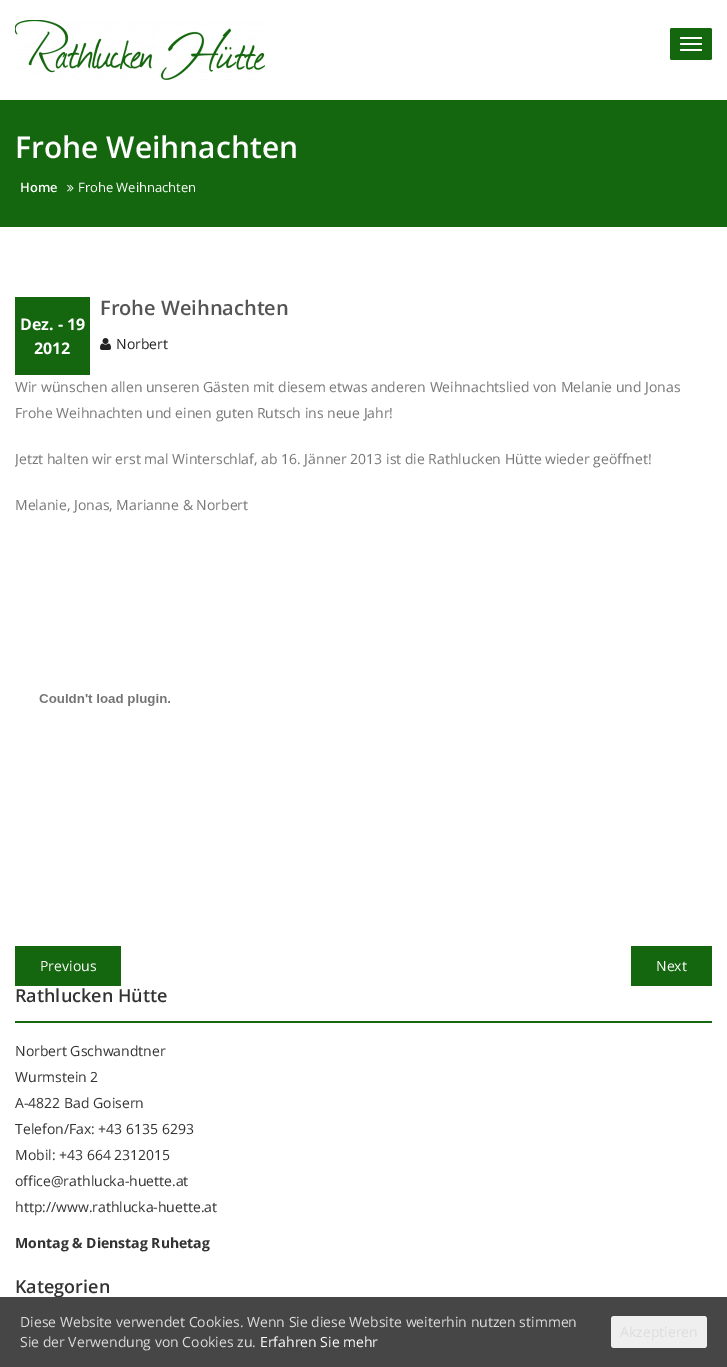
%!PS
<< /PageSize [727 1367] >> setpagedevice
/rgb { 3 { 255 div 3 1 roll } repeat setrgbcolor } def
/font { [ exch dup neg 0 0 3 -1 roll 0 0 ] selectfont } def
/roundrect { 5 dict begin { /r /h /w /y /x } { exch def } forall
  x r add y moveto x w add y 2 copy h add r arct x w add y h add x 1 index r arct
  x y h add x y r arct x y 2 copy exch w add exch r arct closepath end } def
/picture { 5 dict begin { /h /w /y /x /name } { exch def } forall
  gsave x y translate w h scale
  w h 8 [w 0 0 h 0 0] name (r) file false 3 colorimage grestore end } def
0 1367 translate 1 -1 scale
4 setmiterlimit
255 255 255 rgb
0 0 727 1367 rectfill
(img/1.rgb) 15 20 250 60 picture
20 103 14 rgb
670 28 42 32 2 roundrect fill
255 255 255 rgb
680 37 22 2 1 roundrect fill
680 43 22 2 1 roundrect fill
680 49 22 2 1 roundrect fill
20 103 14 rgb
0 100 727 127 rectfill
(img/2.rgb) 67 184 7 8 picture
15 297 75 78 rectfill
(img/3.rgb) 100 338 11 12 picture
(img/4.rgb) 39 694 131 12 picture
[
  [15 946 106 40 20 103 14]
  [631 946 81 40 20 103 14]
  [15 1021 697 2 20 103 14]
] { aload pop rgb rectfill } forall
/OpenSans-SemiBold 30 font
255 255 255 rgb
15 158 moveto (Frohe Weihnachten) show
/OpenSans-SemiBold 13 font
20 192 moveto (Home) show
/OpenSans-Regular 13 font
78 192 moveto (Frohe Weihnachten) show
/OpenSans-SemiBold 20 font
85 85 85 rgb
100 315 moveto (Frohe Weihnachten) show
/OpenSans-Bold 16 font
255 255 255 rgb
20 330 moveto (Dez. - 19) show
34 354 moveto (2012) show
/OpenSans-Regular 14 font
34 34 34 rgb
116 349 moveto (Norbert) show
119 119 119 rgb
15 392 moveto (Wir wünschen allen unseren Gästen mit diesem etwas anderen Weihnachtslied von Melanie und Jonas) show
15 418 moveto (Frohe Weihnachten und einen guten Rutsch ins neue Jahr!) show
gsave
15 297 697 589 rectclip
15 464 moveto (Jetzt halten wir erst mal Winterschlaf, ab 16. Jänner 2013 ist die Rathlucken Hütte wieder geöffnet!) show
grestore
15 510 moveto (Melanie, Jonas, Marianne & Norbert) show
255 255 255 rgb
40 971 moveto (Previous) show
656 971 moveto (Next) show
/OpenSans-SemiBold 18 font
51 51 51 rgb
15 1002 moveto (Rathlucken Hütte) show
/OpenSans-Regular 14 font
[
  [(Norbert Gschwandtner) 15 1056]
  [(Wurmstein 2) 15 1082]
  [(A-4822 Bad Goisern) 15 1108]
  [(Telefon/Fax: +43 6135 6293) 15 1134]
  [(Mobil: +43 664 2312015) 15 1160]
  [(office@rathlucka-huette.at) 15 1186]
  [(http://www.rathlucka-huette.at) 15 1212]
] { aload pop moveto show } forall
/OpenSans-Bold 14 font
15 1248 moveto (Montag & Dienstag Ruhetag) show
/OpenSans-SemiBold 18 font
15 1293 moveto (Kategorien) show
70 70 70 rgb
0 1297 727 70 rectfill
/OpenSans-Regular 14 font
221 221 221 rgb
20 1327 moveto (Diese Website verwendet Cookies. Wenn Sie diese Website weiterhin nutzen stimmen) show
20 1347 moveto (Sie der Verwendung von Cookies zu.) show
255 255 255 rgb
260 1347 moveto (Erfahren Sie mehr) show
239 239 239 rgb
611 1316 96 32 3 roundrect fill
221 221 221 rgb
620 1337 moveto (Akzeptieren) show
showpage
